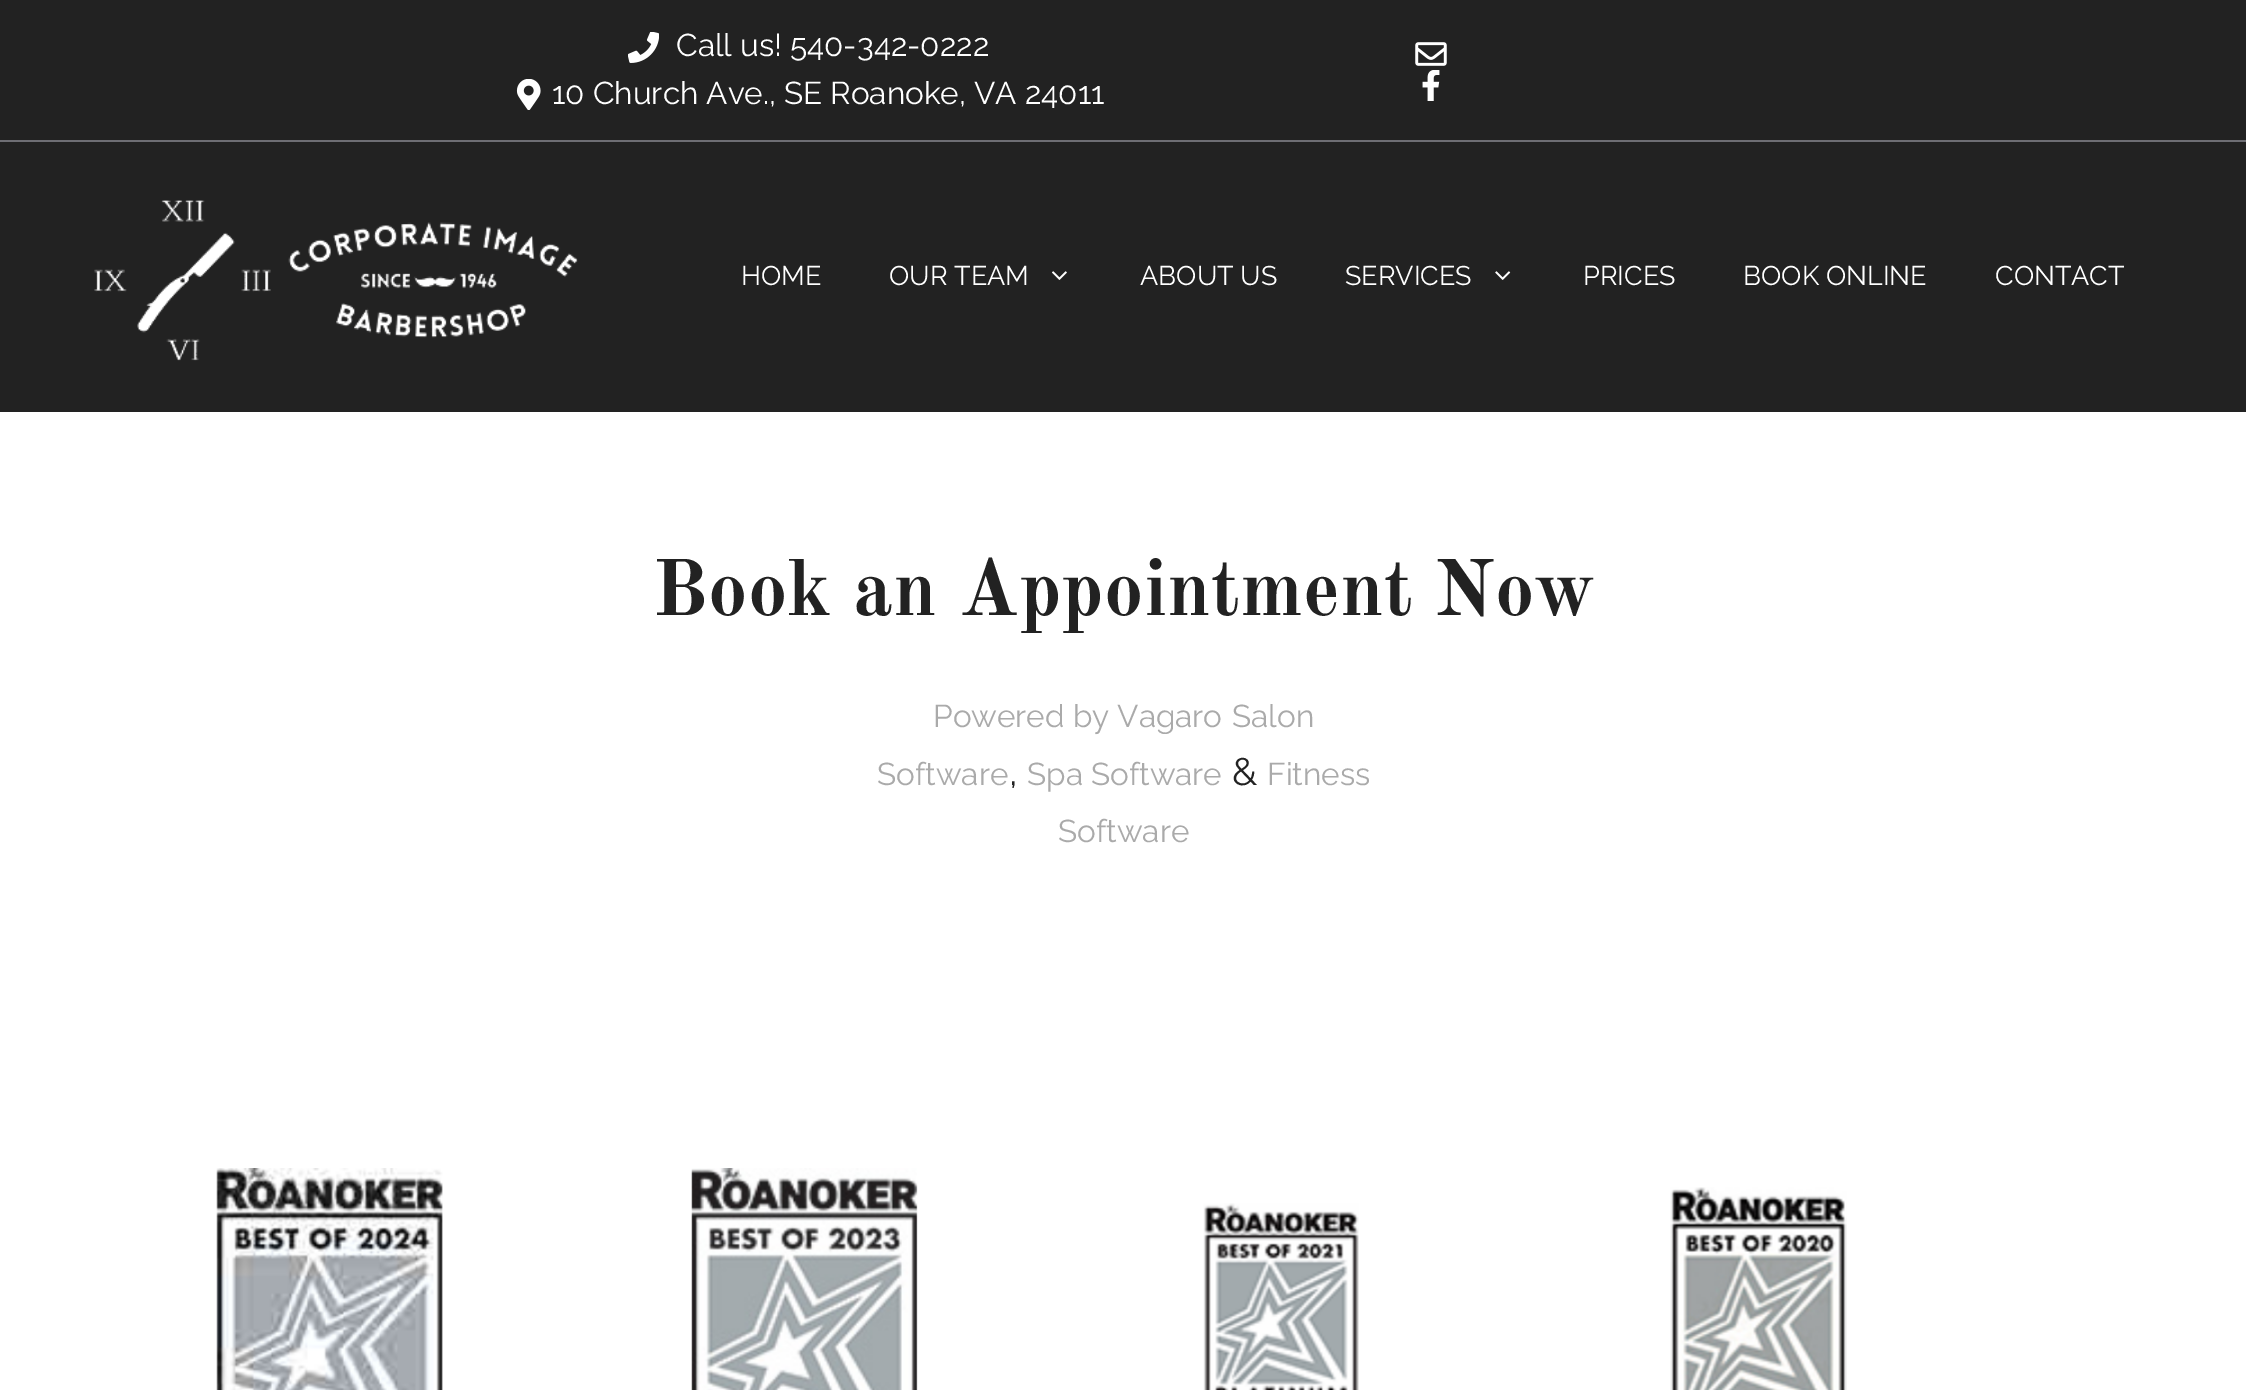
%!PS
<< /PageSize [2246 1390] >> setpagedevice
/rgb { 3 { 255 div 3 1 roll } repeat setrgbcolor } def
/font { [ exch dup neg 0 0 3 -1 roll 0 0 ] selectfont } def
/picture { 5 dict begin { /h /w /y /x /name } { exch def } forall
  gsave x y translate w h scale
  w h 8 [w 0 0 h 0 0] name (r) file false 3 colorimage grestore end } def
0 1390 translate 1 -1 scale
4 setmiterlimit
255 255 255 rgb
0 0 2246 1390 rectfill
34 34 34 rgb
0 0 2246 140 rectfill
110 110 116 rgb
0 140 2246 2 rectfill
(img/1.rgb) 628 32 31 31 picture
(img/2.rgb) 516 79 25 31 picture
(img/3.rgb) 1415 42 32 24 picture
(img/4.rgb) 1422 70 18 31 picture
34 34 34 rgb
0 142 2246 270 rectfill
(img/5.rgb) 94 200 484 161 picture
(img/6.rgb) 1052 271 15 9 picture
(img/7.rgb) 1495 271 16 9 picture
(img/8.rgb) 216 1168 227 222 picture
(img/9.rgb) 691 1168 227 222 picture
(img/10.rgb) 1203 1203 156 187 picture
(img/11.rgb) 1670 1187 177 203 picture
/Raleway-Thin 31.5 font
255 255 255 rgb
676 56 moveto (Call us! 540-342-0222) show
552 104 moveto (10 Church Ave., SE Roanoke, VA 24011) show
/Raleway-Thin 27 font
[
  [(HOME) 741 285]
  [(OUR TEAM) 889 285]
  [(ABOUT US) 1140 285]
  [(SERVICES) 1345 285]
  [(PRICES) 1583 285]
  [(BOOK ONLINE) 1743 285]
  [(CONTACT) 1995 285]
] { aload pop moveto show } forall
/OldStandardTT-Bold 78.75 font
34 34 34 rgb
652 615 moveto (Book an Appointment Now) show
/Raleway-Thin 31.5 font
170 170 170 rgb
[
  [(Powered by Vagaro) 933 727]
  [(Salon) 1232 727]
  [(Software) 877 785]
] { aload pop moveto show } forall
/Raleway-Thin 38 font
34 34 34 rgb
1009 785 moveto (,) show
/Raleway-Thin 31.5 font
170 170 170 rgb
1027 785 moveto (Spa Software) show
/Raleway-Thin 38 font
34 34 34 rgb
1232 785 moveto (&) show
/Raleway-Thin 31.5 font
170 170 170 rgb
1267 785 moveto (Fitness) show
1058 842 moveto (Software) show
showpage
